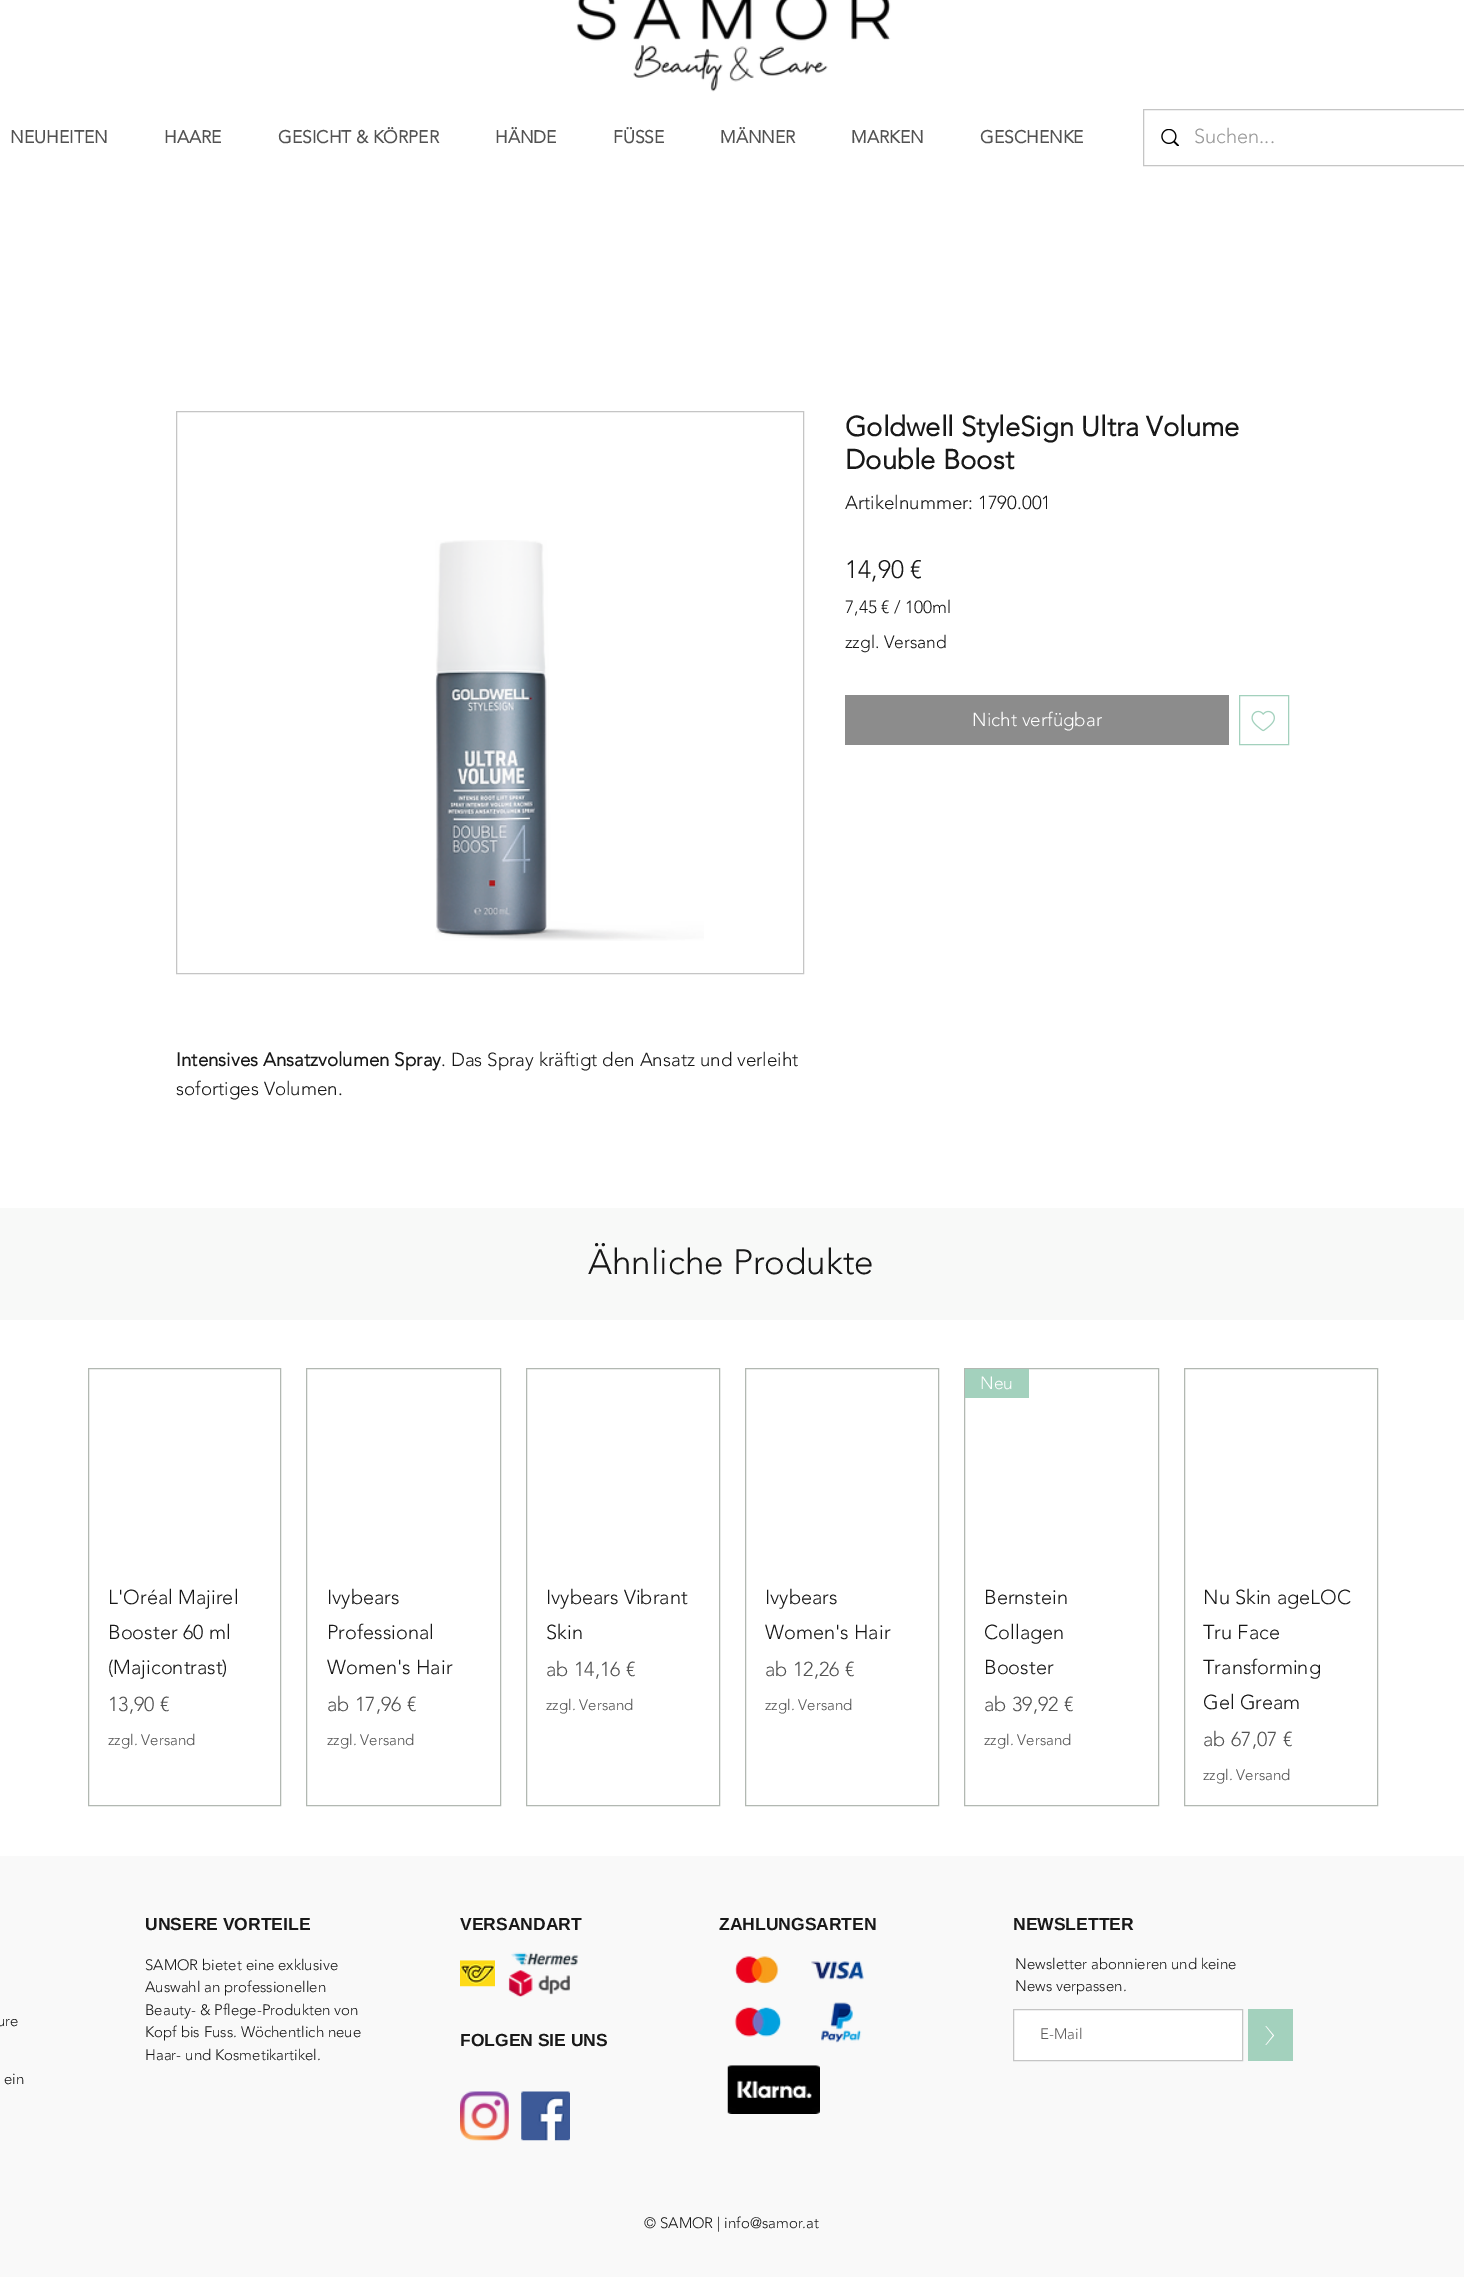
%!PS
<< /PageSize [1464 2277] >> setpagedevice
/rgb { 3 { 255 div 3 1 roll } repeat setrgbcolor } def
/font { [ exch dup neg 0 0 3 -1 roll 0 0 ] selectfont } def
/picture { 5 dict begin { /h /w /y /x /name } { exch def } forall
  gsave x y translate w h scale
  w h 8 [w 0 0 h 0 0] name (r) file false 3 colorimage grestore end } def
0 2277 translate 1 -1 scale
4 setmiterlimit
255 255 255 rgb
0 0 1464 2277 rectfill
(img/1.rgb) 576 0 315 92 picture
197 197 197 rgb
1143.5 109.5 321 56 rectstroke
(img/2.rgb) 1161 129 18 17 picture
140 140 140 rgb
845 695 384 50 rectfill
163 209 189 rgb
1239.5 695.5 49 49 rectstroke
(img/3.rgb) 1251 710 24 22 picture
197 197 197 rgb
176.5 411.5 627 562 rectstroke
(img/4.rgb) 435 540 269 401 picture
248 249 248 rgb
0 1208 1464 112 rectfill
178 184 178 rgb
88.5 1368.5 192 437 rectstroke
306.5 1368.5 194 437 rectstroke
526.5 1368.5 193 437 rectstroke
745.5 1368.5 193 437 rectstroke
964.5 1368.5 194 437 rectstroke
163 209 189 rgb
965 1369 64 29 rectfill
178 184 178 rgb
1184.5 1368.5 193 437 rectstroke
249 249 249 rgb
0 1856 1464 421 rectfill
(img/5.rgb) 460 1960 35 27 picture
(img/6.rgb) 511 1952 68 14 picture
(img/7.rgb) 735 1956 129 28 picture
(img/8.rgb) 734 2007 48 30 picture
(img/9.rgb) 508 1970 62 27 picture
(img/10.rgb) 821 2002 41 41 picture
255 255 255 rgb
1013.5 2009.5 moveto 1242.5 2009.5 lineto 1242.5 2060.5 lineto 1013.5 2060.5 lineto closepath gsave fill grestore
197 197 197 rgb
stroke
163 209 189 rgb
1248 2009 45 52 rectfill
255 255 255 rgb
1274 2035.5 moveto 1266 2045 lineto 1265.5 2045 lineto 1273 2035.5 lineto 1265.5 2026 lineto 1266 2026 lineto closepath fill
(img/11.rgb) 460 2091 49 50 picture
(img/12.rgb) 521 2091 49 50 picture
(img/13.rgb) 727 2065 93 49 picture
/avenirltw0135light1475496-Bold 17.5 font
82 82 82 rgb
[
  [(NEUHEITEN) 10 143]
  [(HAARE) 164 143]
  [(GESICHT & KÖRPER) 278 143]
  [(HÄNDE) 495 143]
  [(FÜSSE) 613 143]
  [(MÄNNER) 720 143]
  [(MARKEN) 851 143]
  [(GESCHENKE) 980 143]
] { aload pop moveto show } forall
/avenirltw0135light1475496-Light 20 font
153 153 153 rgb
1194 143 moveto (Suchen...) show
/avenirltw0135light1475496-Bold 27.5 font
24 24 24 rgb
845 436 moveto (Goldwell StyleSign Ultra Volume) show
845 469 moveto (Double Boost) show
/avenirltw0135light1475496-Light 18.75 font
845 509 moveto (Artikelnummer: 1790.001) show
/avenirltw0135light1475496-Light 25 font
845 578 moveto (14,90 €) show
/avenirltw0135light1475496-Light 17.5 font
845 613 moveto (7,45 € / 100ml) show
845 648 moveto (zzgl. Versand) show
/avenirltw0135light1475496-Light 18.75 font
255 255 255 rgb
972 726 moveto (Nicht verfügbar) show
/avenirltw0135light1475496-Bold 18.75 font
24 24 24 rgb
176 1066 moveto (Intensives Ansatzvolumen Spray) show
/avenirltw0135light1475496-Light 18.75 font
441 1066 moveto (. Das Spray kräftigt den Ansatz und verleiht) show
176 1095 moveto (sofortiges Volumen.) show
/avenirltw0135light1475496-Light 35 font
588 1274 moveto (Ähnliche Produkte) show
/avenirltw0135light1475496-Light 20 font
[
  [(L'Oréal Majirel) 108 1604]
  [(Booster 60 ml) 108 1639]
  [(\(Majicontrast\)) 108 1674]
] { aload pop moveto show } forall
82 82 82 rgb
108 1711 moveto (13,90 €) show
/avenirltw0135light1475496-Light 15 font
108 1745 moveto (zzgl. Versand) show
/avenirltw0135light1475496-Light 20 font
24 24 24 rgb
[
  [(Ivybears) 327 1604]
  [(Professional) 327 1639]
  [(Women's Hair) 327 1674]
] { aload pop moveto show } forall
82 82 82 rgb
327 1711 moveto (ab 17,96 €) show
/avenirltw0135light1475496-Light 15 font
327 1745 moveto (zzgl. Versand) show
/avenirltw0135light1475496-Light 20 font
24 24 24 rgb
546 1604 moveto (Ivybears Vibrant) show
546 1639 moveto (Skin) show
82 82 82 rgb
546 1676 moveto (ab 14,16 €) show
/avenirltw0135light1475496-Light 15 font
546 1710 moveto (zzgl. Versand) show
/avenirltw0135light1475496-Light 20 font
24 24 24 rgb
765 1604 moveto (Ivybears) show
765 1639 moveto (Women's Hair) show
82 82 82 rgb
765 1676 moveto (ab 12,26 €) show
/avenirltw0135light1475496-Light 15 font
765 1710 moveto (zzgl. Versand) show
/avenirltw0135light1475496-Light 17.5 font
255 255 255 rgb
980 1389 moveto (Neu) show
/avenirltw0135light1475496-Light 20 font
24 24 24 rgb
[
  [(Bernstein) 984 1604]
  [(Collagen) 984 1639]
  [(Booster) 984 1674]
] { aload pop moveto show } forall
82 82 82 rgb
984 1711 moveto (ab 39,92 €) show
/avenirltw0135light1475496-Light 15 font
984 1745 moveto (zzgl. Versand) show
/avenirltw0135light1475496-Light 20 font
24 24 24 rgb
[
  [(Nu Skin ageLOC) 1203 1604]
  [(Tru Face) 1203 1639]
  [(Transforming) 1203 1674]
  [(Gel Gream) 1203 1709]
] { aload pop moveto show } forall
82 82 82 rgb
1203 1746 moveto (ab 67,07 €) show
/avenirltw0135light1475496-Light 15 font
1203 1780 moveto (zzgl. Versand) show
/LiberationSans-Bold 17.5 font
24 24 24 rgb
[
  [(UNSERE VORTEILE) 145 1930]
  [(VERSANDART) 460 1930]
  [(ZAHLUNGSARTEN) 719 1930]
  [(NEWSLETTER) 1013 1930]
] { aload pop moveto show } forall
/avenirltw0135light1475496-Light 15 font
[
  [(SAMOR bietet eine exklusive) 145 1970]
  [(Auswahl an professionellen) 145 1992]
  [(Beauty- & Pflege-Produkten von) 145 2015]
  [(Kopf bis Fuss. Wöchentlich neue) 145 2037]
  [(Haar- und Kosmetikartikel.) 145 2060]
  [(Newsletter abonnieren und keine) 1015 1969]
  [(News verpassen.) 1015 1991]
  [(ure) -3 2026]
  [(ein) 4 2084]
] { aload pop moveto show } forall
/LiberationSans-Bold 17.5 font
460 2046 moveto (FOLGEN SIE UNS) show
/avenirltw0135light1475496-Light 15 font
96 94 94 rgb
1040 2039 moveto (E-Mail) show
24 24 24 rgb
644 2228 moveto (© SAMOR | info@samor.at) show
showpage
